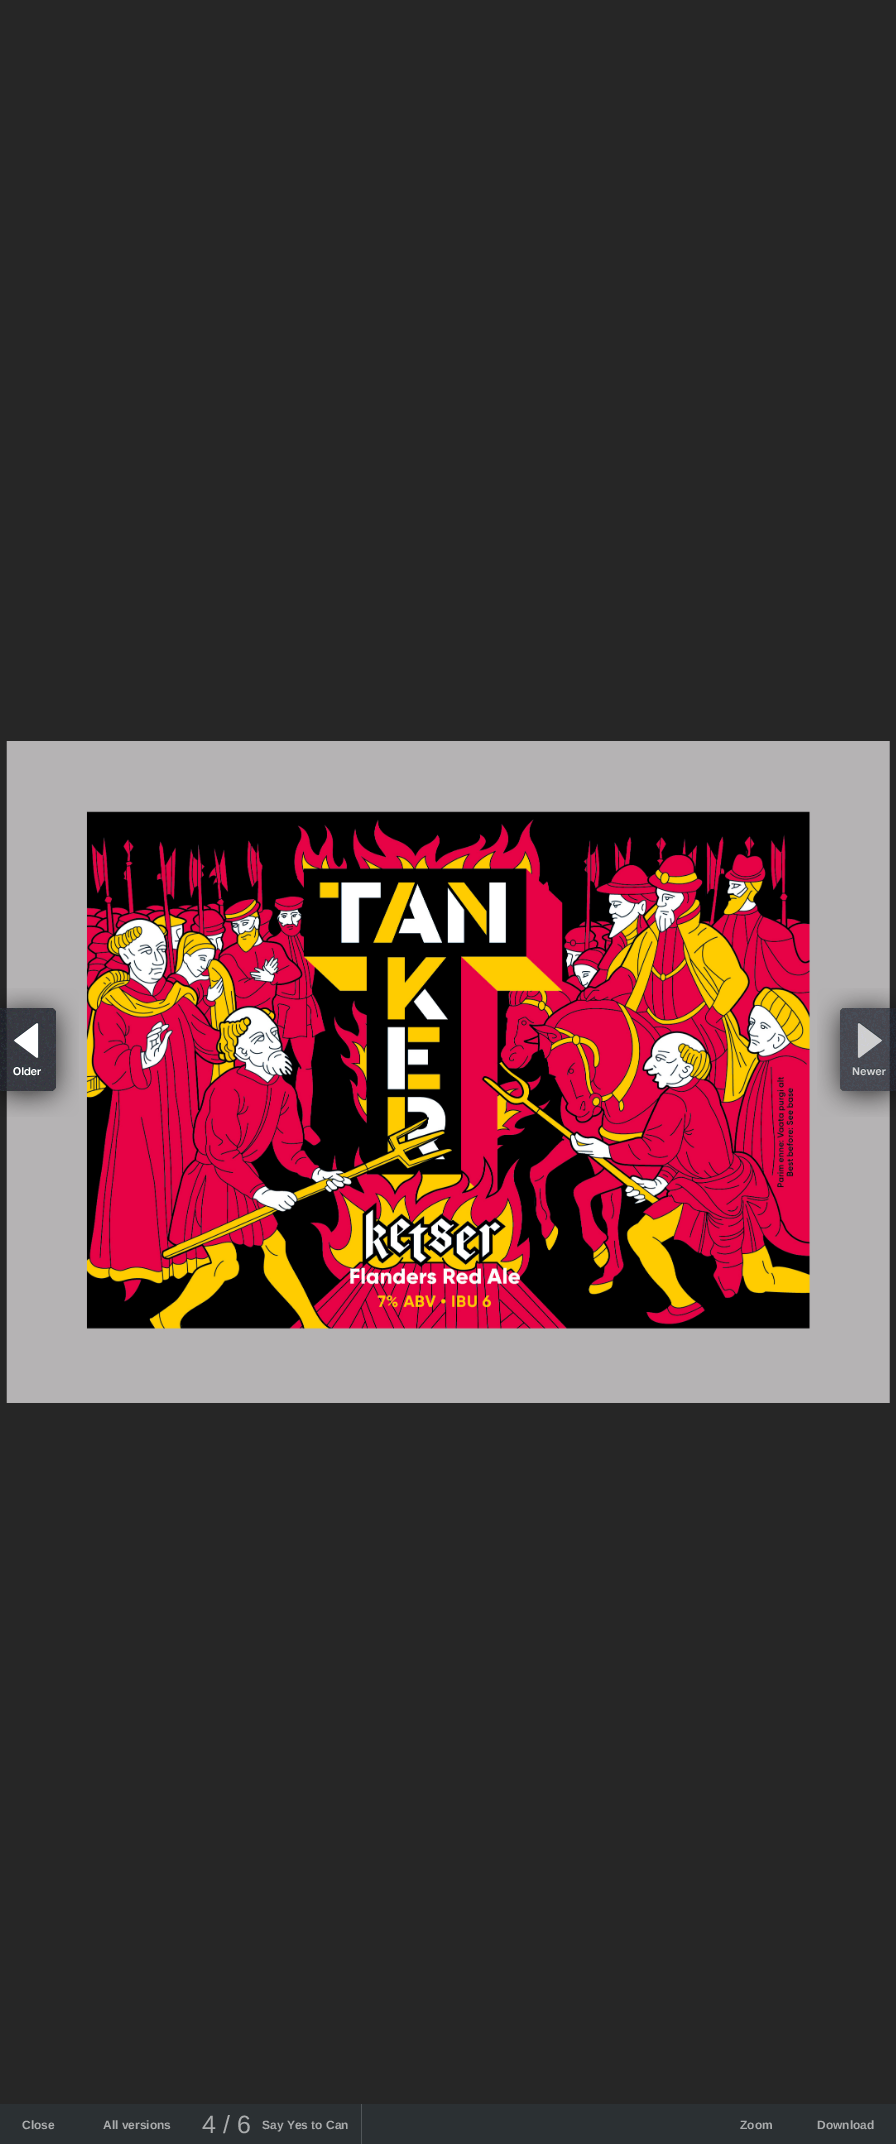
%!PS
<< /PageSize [896 2144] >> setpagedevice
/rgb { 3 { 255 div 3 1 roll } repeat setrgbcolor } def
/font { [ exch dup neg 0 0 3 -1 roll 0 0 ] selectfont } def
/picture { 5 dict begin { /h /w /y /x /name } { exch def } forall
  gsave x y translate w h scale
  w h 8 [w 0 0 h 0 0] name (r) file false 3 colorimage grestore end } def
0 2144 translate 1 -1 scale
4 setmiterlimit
38 38 38 rgb
0 0 896 2144 rectfill
(img/1.rgb) 6 741 884 662 picture
(img/2.rgb) 0 988 79 129 picture
(img/3.rgb) 817 988 79 129 picture
43 48 51 rgb
0 2104 896 40 rectfill
81 86 89 rgb
361 2104 1 40 rectfill
/LiberationSans-Bold 12 font
170 172 173 rgb
22 2129 moveto (Close) show
103 2129 moveto (All versions) show
/LiberationSans-Regular 25 font
202 2133 moveto (4 / 6) show
/LiberationSans-Bold 12 font
[
  [(Say Yes to Can) 262 2129]
  [(Zoom) 740 2129]
  [(Download) 817 2129]
] { aload pop moveto show } forall
showpage
